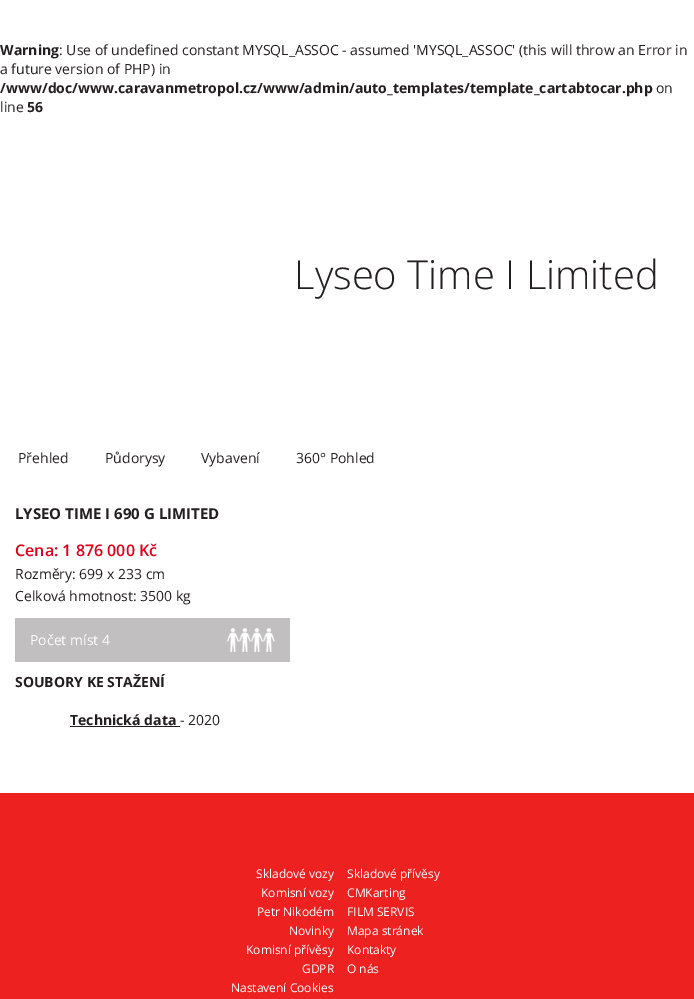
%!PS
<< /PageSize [694 999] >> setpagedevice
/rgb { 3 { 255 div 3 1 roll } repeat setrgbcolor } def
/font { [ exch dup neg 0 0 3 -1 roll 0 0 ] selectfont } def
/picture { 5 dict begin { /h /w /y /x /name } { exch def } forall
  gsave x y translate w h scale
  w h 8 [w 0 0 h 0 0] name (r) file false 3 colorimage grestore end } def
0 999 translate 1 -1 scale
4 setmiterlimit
255 255 255 rgb
0 0 694 999 rectfill
193 191 191 rgb
15 618 275 44 rectfill
(img/1.rgb) 227 628 12 24 picture
(img/1.rgb) 239 628 12 24 picture
(img/1.rgb) 251 628 12 24 picture
(img/1.rgb) 263 628 12 24 picture
35 31 32 rgb
70 726 110 1 rectfill
237 33 32 rgb
0 793 694 206 rectfill
/OpenSans-Bold 14 font
35 31 32 rgb
0 55 moveto (Warning) show
/OpenSans-Regular 14 font
59 55 moveto (: Use of undefined constant MYSQL_ASSOC - assumed 'MYSQL_ASSOC' \(this will throw an Error in) show
0 74 moveto (a future version of PHP\) in) show
/OpenSans-Bold 14 font
0 93 moveto (/www/doc/www.caravanmetropol.cz/www/admin/auto_templates/template_cartabtocar.php) show
/OpenSans-Regular 14 font
656 93 moveto (on) show
0 112 moveto (line) show
/OpenSans-Bold 14 font
27 112 moveto (56) show
/OpenSans-Light 40 font
294 289 moveto (Lyseo Time I Limited) show
/OpenSans-Regular 14 font
[
  [(Přehled) 18 463]
  [(Půdorysy) 105 463]
  [(Vybavení) 201 463]
  [(360° Pohled) 296 463]
] { aload pop moveto show } forall
/OpenSans-Bold 15 font
15 519 moveto (LYSEO TIME I 690 G LIMITED) show
/OpenSans-SemiBold 16 font
225 0 24 rgb
15 556 moveto (Cena: 1 876 000 Kč) show
/OpenSans-Regular 14 font
35 31 32 rgb
15 579 moveto (Rozměry: 699 x 233 cm) show
15 601 moveto (Celková hmotnost: 3500 kg) show
255 255 255 rgb
30 645 moveto (Počet míst 4) show
/OpenSans-Bold 14 font
35 31 32 rgb
15 687 moveto (SOUBORY KE STAŽENÍ) show
70 725 moveto (Technická data) show
/OpenSans-Regular 14 font
180 725 moveto (- 2020) show
/OpenSans-Regular 12 font
255 255 255 rgb
[
  [(Skladové vozy) 256 878]
  [(Skladové přívěsy) 347 878]
  [(Komisní vozy) 261 897]
  [(CMKarting) 347 897]
  [(Petr Nikodém) 257 916]
  [(FILM SERVIS) 347 916]
  [(Novinky) 289 935]
  [(Mapa stránek) 347 935]
  [(Komisní přívěsy) 246 954]
  [(Kontakty) 347 954]
  [(GDPR) 302 973]
  [(O nás) 347 973]
  [(Nastavení Cookies) 231 992]
] { aload pop moveto show } forall
showpage
